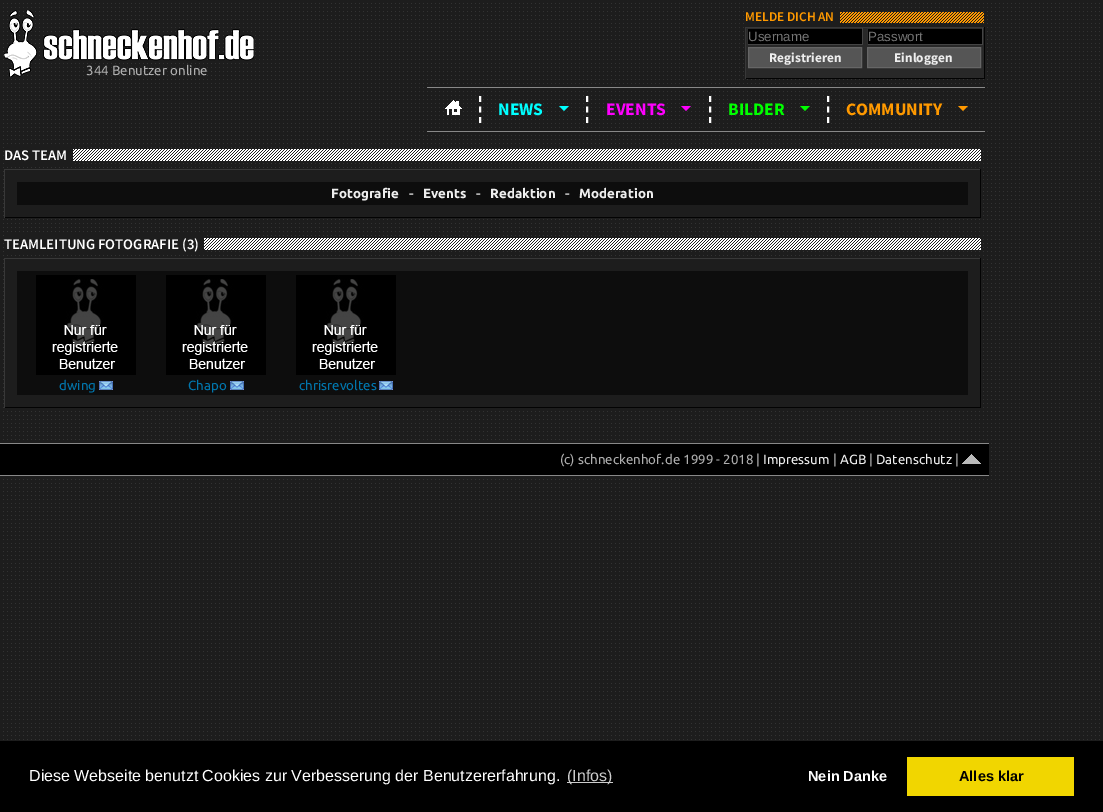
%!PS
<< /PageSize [1103 812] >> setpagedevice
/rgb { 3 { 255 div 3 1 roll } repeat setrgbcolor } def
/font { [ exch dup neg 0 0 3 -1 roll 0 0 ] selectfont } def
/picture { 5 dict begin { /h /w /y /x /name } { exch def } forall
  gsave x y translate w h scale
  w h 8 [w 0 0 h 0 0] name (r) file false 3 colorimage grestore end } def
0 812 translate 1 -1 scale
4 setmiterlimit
29 29 29 rgb
0 0 1103 812 rectfill
(img/1.rgb) 3 3 1097 738 picture
(img/2.rgb) 840 12 144 11 picture
[
  [747 11 93 13 29 29 29]
  [745 27 240 1 56 56 56]
  [984 27 1 52 3 3 3]
  [745 78 240 1 3 3 3]
  [745 27 1 52 56 56 56]
  [746 28 238 50 40 40 40]
  [748 29 114 15 0 0 0]
  [747 28 116 1 45 45 45]
  [862 28 1 17 68 68 68]
  [747 44 116 1 68 68 68]
  [747 28 1 17 45 45 45]
  [868 29 114 15 0 0 0]
  [867 28 116 1 45 45 45]
  [982 28 1 17 68 68 68]
  [867 44 116 1 68 68 68]
  [867 28 1 17 45 45 45]
] { aload pop rgb rectfill } forall
85 85 85 rgb
748.5 47.5 moveto 861.5 47.5 lineto 861.5 67.5 lineto 748.5 67.5 lineto closepath gsave fill grestore
102 102 102 rgb
stroke
85 85 85 rgb
867.5 47.5 moveto 980.5 47.5 lineto 980.5 67.5 lineto 867.5 67.5 lineto closepath gsave fill grestore
102 102 102 rgb
stroke
(img/3.rgb) 4 10 250 67 picture
136 136 136 rgb
427 87 558 1 rectfill
427 131 558 1 rectfill
(img/4.rgb) 445 100 17 15 picture
255 255 255 rgb
2 setlinewidth
480 96 moveto 480 102 lineto 480 106.5 moveto 480 112.5 lineto 480 117 moveto 480 123 lineto stroke
0 255 255 rgb
559 106 moveto 569 106 lineto 564 111 lineto closepath fill
255 255 255 rgb
587 96 moveto 587 102 lineto 587 106.5 moveto 587 112.5 lineto 587 117 moveto 587 123 lineto stroke
255 0 255 rgb
681 106 moveto 691 106 lineto 686 111 lineto closepath fill
255 255 255 rgb
710 96 moveto 710 102 lineto 710 106.5 moveto 710 112.5 lineto 710 117 moveto 710 123 lineto stroke
0 255 0 rgb
800 106 moveto 810 106 lineto 805 111 lineto closepath fill
255 255 255 rgb
828 96 moveto 828 102 lineto 828 106.5 moveto 828 112.5 lineto 828 117 moveto 828 123 lineto stroke
255 153 0 rgb
958 106 moveto 968 106 lineto 963 111 lineto closepath fill
(img/5.rgb) 73 149 908 12 picture
[
  [7 147 65 17 29 29 29]
  [7 171 973 45 29 29 29]
  [4 169 977 1 56 56 56]
  [980 169 1 49 3 3 3]
  [4 217 977 1 3 3 3]
  [4 169 1 49 56 56 56]
  [17 182 951 23 13 13 13]
] { aload pop rgb rectfill } forall
(img/6.rgb) 204 238 777 12 picture
[
  [7 235 197 17 29 29 29]
  [7 259 973 145 29 29 29]
  [4 258 977 1 56 56 56]
  [980 258 1 150 3 3 3]
  [4 407 977 1 3 3 3]
  [4 258 1 150 56 56 56]
  [17 271 951 124 13 13 13]
] { aload pop rgb rectfill } forall
(img/7.rgb) 36 275 100 100 picture
(img/8.rgb) 99 381 14 9 picture
(img/7.rgb) 166 275 100 100 picture
(img/8.rgb) 230 381 14 9 picture
(img/7.rgb) 296 275 100 100 picture
(img/8.rgb) 379 381 14 9 picture
[
  [0 444 989 31 0 0 0]
  [0 443 989 1 136 136 136]
  [0 475 989 1 136 136 136]
] { aload pop rgb rectfill } forall
(img/9.rgb) 962 454 19 10 picture
[
  [0 741 1103 71 0 0 0]
  [567 782 46 1 204 204 204]
  [907 757 167 39 241 214 0]
] { aload pop rgb rectfill } forall
/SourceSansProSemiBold-SemiBold 13.3 font
255 153 0 rgb
745 21 moveto (MELDE DICH AN) show
/LiberationSans-Regular 13.3 font
117 117 117 rgb
748 41 moveto (Username) show
868 41 moveto (Passwort) show
/SourceSansPro-Bold 13.3 font
238 238 238 rgb
769 62 moveto (Registrieren) show
894 62 moveto (Einloggen) show
/Ubuntu-Regular 13.3 font
174 174 174 rgb
86 75 moveto (344 Benutzer online) show
/SourceSansPro-Bold 17.5 font
0 255 255 rgb
498 115 moveto (NEWS) show
255 0 255 rgb
606 115 moveto (EVENTS) show
0 255 0 rgb
728 115 moveto (BILDER) show
255 153 0 rgb
846 115 moveto (COMMUNITY) show
/SourceSansProSemiBold-SemiBold 14.7 font
255 255 255 rgb
4 160 moveto (DAS TEAM) show
/Ubuntu-Bold 13.3 font
238 238 238 rgb
331 198 moveto (Fotografie) show
174 174 174 rgb
409 198 moveto (-) show
238 238 238 rgb
423 198 moveto (Events) show
174 174 174 rgb
476 198 moveto (-) show
238 238 238 rgb
490 198 moveto (Redaktion) show
174 174 174 rgb
565 198 moveto (-) show
238 238 238 rgb
579 198 moveto (Moderation) show
/SourceSansProSemiBold-SemiBold 14.7 font
255 255 255 rgb
4 249 moveto (TEAMLEITUNG FOTOGRAFIE \(3\)) show
/Ubuntu-Regular 13.3 font
1 118 173 rgb
[
  [(dwing) 59 390]
  [(Chapo) 188 390]
  [(chrisrevoltes) 299 390]
] { aload pop moveto show } forall
174 174 174 rgb
560 464 moveto (\(c\) schneckenhof.de 1999 - 2018 |) show
238 238 238 rgb
763 464 moveto (Impressum) show
174 174 174 rgb
833 464 moveto (|) show
238 238 238 rgb
840 464 moveto (AGB) show
174 174 174 rgb
869 464 moveto (|) show
238 238 238 rgb
876 464 moveto (Datenschutz) show
174 174 174 rgb
955 464 moveto (|) show
/LiberationSans-Regular 16 font
255 255 255 rgb
29 781 moveto (Diese Webseite benutzt Cookies zur Verbesserung der Benutzererfahrung.) show
204 204 204 rgb
567 781 moveto (\(Infos\)) show
/LiberationSans-Bold 14.5 font
255 255 255 rgb
808 781 moveto (Nein Danke) show
0 0 0 rgb
959 781 moveto (Alles klar) show
showpage
